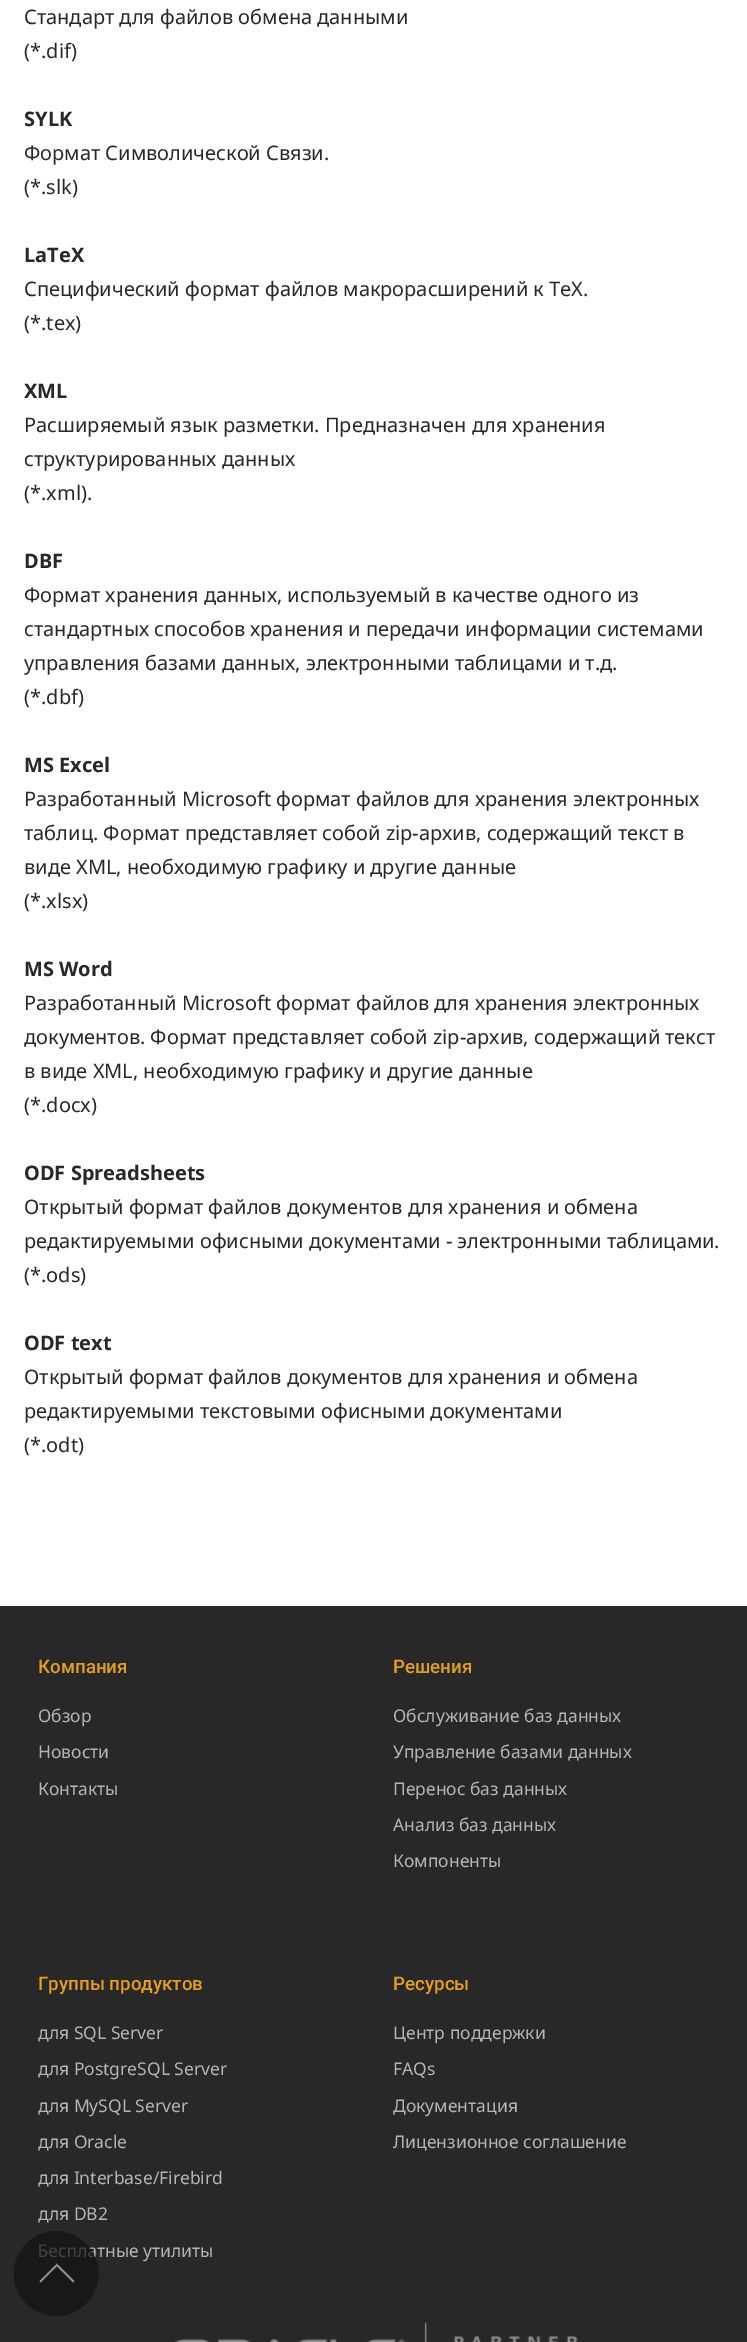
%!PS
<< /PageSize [747 2342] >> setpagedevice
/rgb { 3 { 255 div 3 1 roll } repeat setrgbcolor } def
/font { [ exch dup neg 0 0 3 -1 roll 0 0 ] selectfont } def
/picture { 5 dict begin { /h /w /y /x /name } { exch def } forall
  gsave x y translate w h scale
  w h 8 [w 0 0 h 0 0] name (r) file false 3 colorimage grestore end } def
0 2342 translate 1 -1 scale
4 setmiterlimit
255 255 255 rgb
0 0 747 2342 rectfill
40 40 40 rgb
0 1606 747 736 rectfill
(img/1.rgb) 175 2322 403 20 picture
/NotoSans-Regular 20 font
24 24 moveto (Стандарт для файлов обмена данными) show
24 58 moveto (\(*.dif\)) show
/NotoSans-Bold 20 font
24 126 moveto (SYLK) show
/NotoSans-Regular 20 font
24 160 moveto (Формат Символической Связи.) show
24 194 moveto (\(*.slk\)) show
/NotoSans-Bold 20 font
24 262 moveto (LaTeX) show
/NotoSans-Regular 20 font
24 296 moveto (Специфический формат файлов макрорасширений к TeX.) show
24 330 moveto (\(*.tex\)) show
/NotoSans-Bold 20 font
24 398 moveto (XML) show
/NotoSans-Regular 20 font
[
  [(Расширяемый язык разметки. Предназначен для хранения) 24 432]
  [(структурированных данных) 24 466]
  [(\(*.xml\).) 24 500]
] { aload pop moveto show } forall
/NotoSans-Bold 20 font
24 568 moveto (DBF) show
/NotoSans-Regular 20 font
[
  [(Формат хранения данных, используемый в качестве одного из) 24 602]
  [(стандартных способов хранения и передачи информации системами) 24 636]
  [(управления базами данных, электронными таблицами и т.д.) 24 670]
  [(\(*.dbf\)) 24 704]
] { aload pop moveto show } forall
/NotoSans-Bold 20 font
24 772 moveto (MS Excel) show
/NotoSans-Regular 20 font
[
  [(Разработанный Microsoft формат файлов для хранения электронных) 24 806]
  [(таблиц. Формат представляет собой zip-архив, содержащий текст в) 24 840]
  [(виде XML, необходимую графику и другие данные) 24 874]
  [(\(*.xlsx\)) 24 908]
] { aload pop moveto show } forall
/NotoSans-Bold 20 font
24 976 moveto (MS Word) show
/NotoSans-Regular 20 font
[
  [(Разработанный Microsoft формат файлов для хранения электронных) 24 1010]
  [(документов. Формат представляет собой zip-архив, содержащий текст) 24 1044]
  [(в виде XML, необходимую графику и другие данные) 24 1078]
  [(\(*.docx\)) 24 1112]
] { aload pop moveto show } forall
/NotoSans-Bold 20 font
24 1180 moveto (ODF Spreadsheets) show
/NotoSans-Regular 20 font
[
  [(Открытый формат файлов документов для хранения и обмена) 24 1214]
  [(редактируемыми офисными документами - электронными таблицами.) 24 1248]
  [(\(*.ods\)) 24 1282]
] { aload pop moveto show } forall
/NotoSans-Bold 20 font
24 1350 moveto (ODF text) show
/NotoSans-Regular 20 font
[
  [(Открытый формат файлов документов для хранения и обмена) 24 1384]
  [(редактируемыми текстовыми офисными документами) 24 1418]
  [(\(*.odt\)) 24 1452]
] { aload pop moveto show } forall
/Roboto-Medium 18.75 font
230 158 33 rgb
38 1673 moveto (Компания) show
/NotoSans-Regular 17.5 font
181 181 181 rgb
[
  [(Обзор) 38 1722]
  [(Новости) 38 1758]
  [(Контакты) 38 1795]
] { aload pop moveto show } forall
/Roboto-Medium 18.75 font
230 158 33 rgb
393 1673 moveto (Решения) show
/NotoSans-Regular 17.5 font
181 181 181 rgb
[
  [(Обслуживание баз данных) 393 1722]
  [(Управление базами данных) 393 1758]
  [(Перенос баз данных) 393 1795]
  [(Анализ баз данных) 393 1831]
  [(Компоненты) 393 1867]
] { aload pop moveto show } forall
/Roboto-Medium 18.75 font
230 158 33 rgb
38 1990 moveto (Группы продуктов) show
/NotoSans-Regular 17.5 font
181 181 181 rgb
[
  [(для SQL Server) 38 2039]
  [(для PostgreSQL Server) 38 2075]
  [(для MySQL Server) 38 2112]
  [(для Oracle) 38 2148]
  [(для Interbase/Firebird) 38 2184]
  [(для DB2) 38 2220]
  [(атные утилиты) 87 2257]
] { aload pop moveto show } forall
/Roboto-Medium 18.75 font
230 158 33 rgb
393 1990 moveto (Ресурсы) show
/NotoSans-Regular 17.5 font
181 181 181 rgb
[
  [(Центр поддержки) 393 2039]
  [(FAQs) 393 2075]
  [(Документация) 393 2112]
  [(Лицензионное соглашение) 393 2148]
] { aload pop moveto show } forall
(img/2.rgb) 13 2231 86 86 picture
showpage
